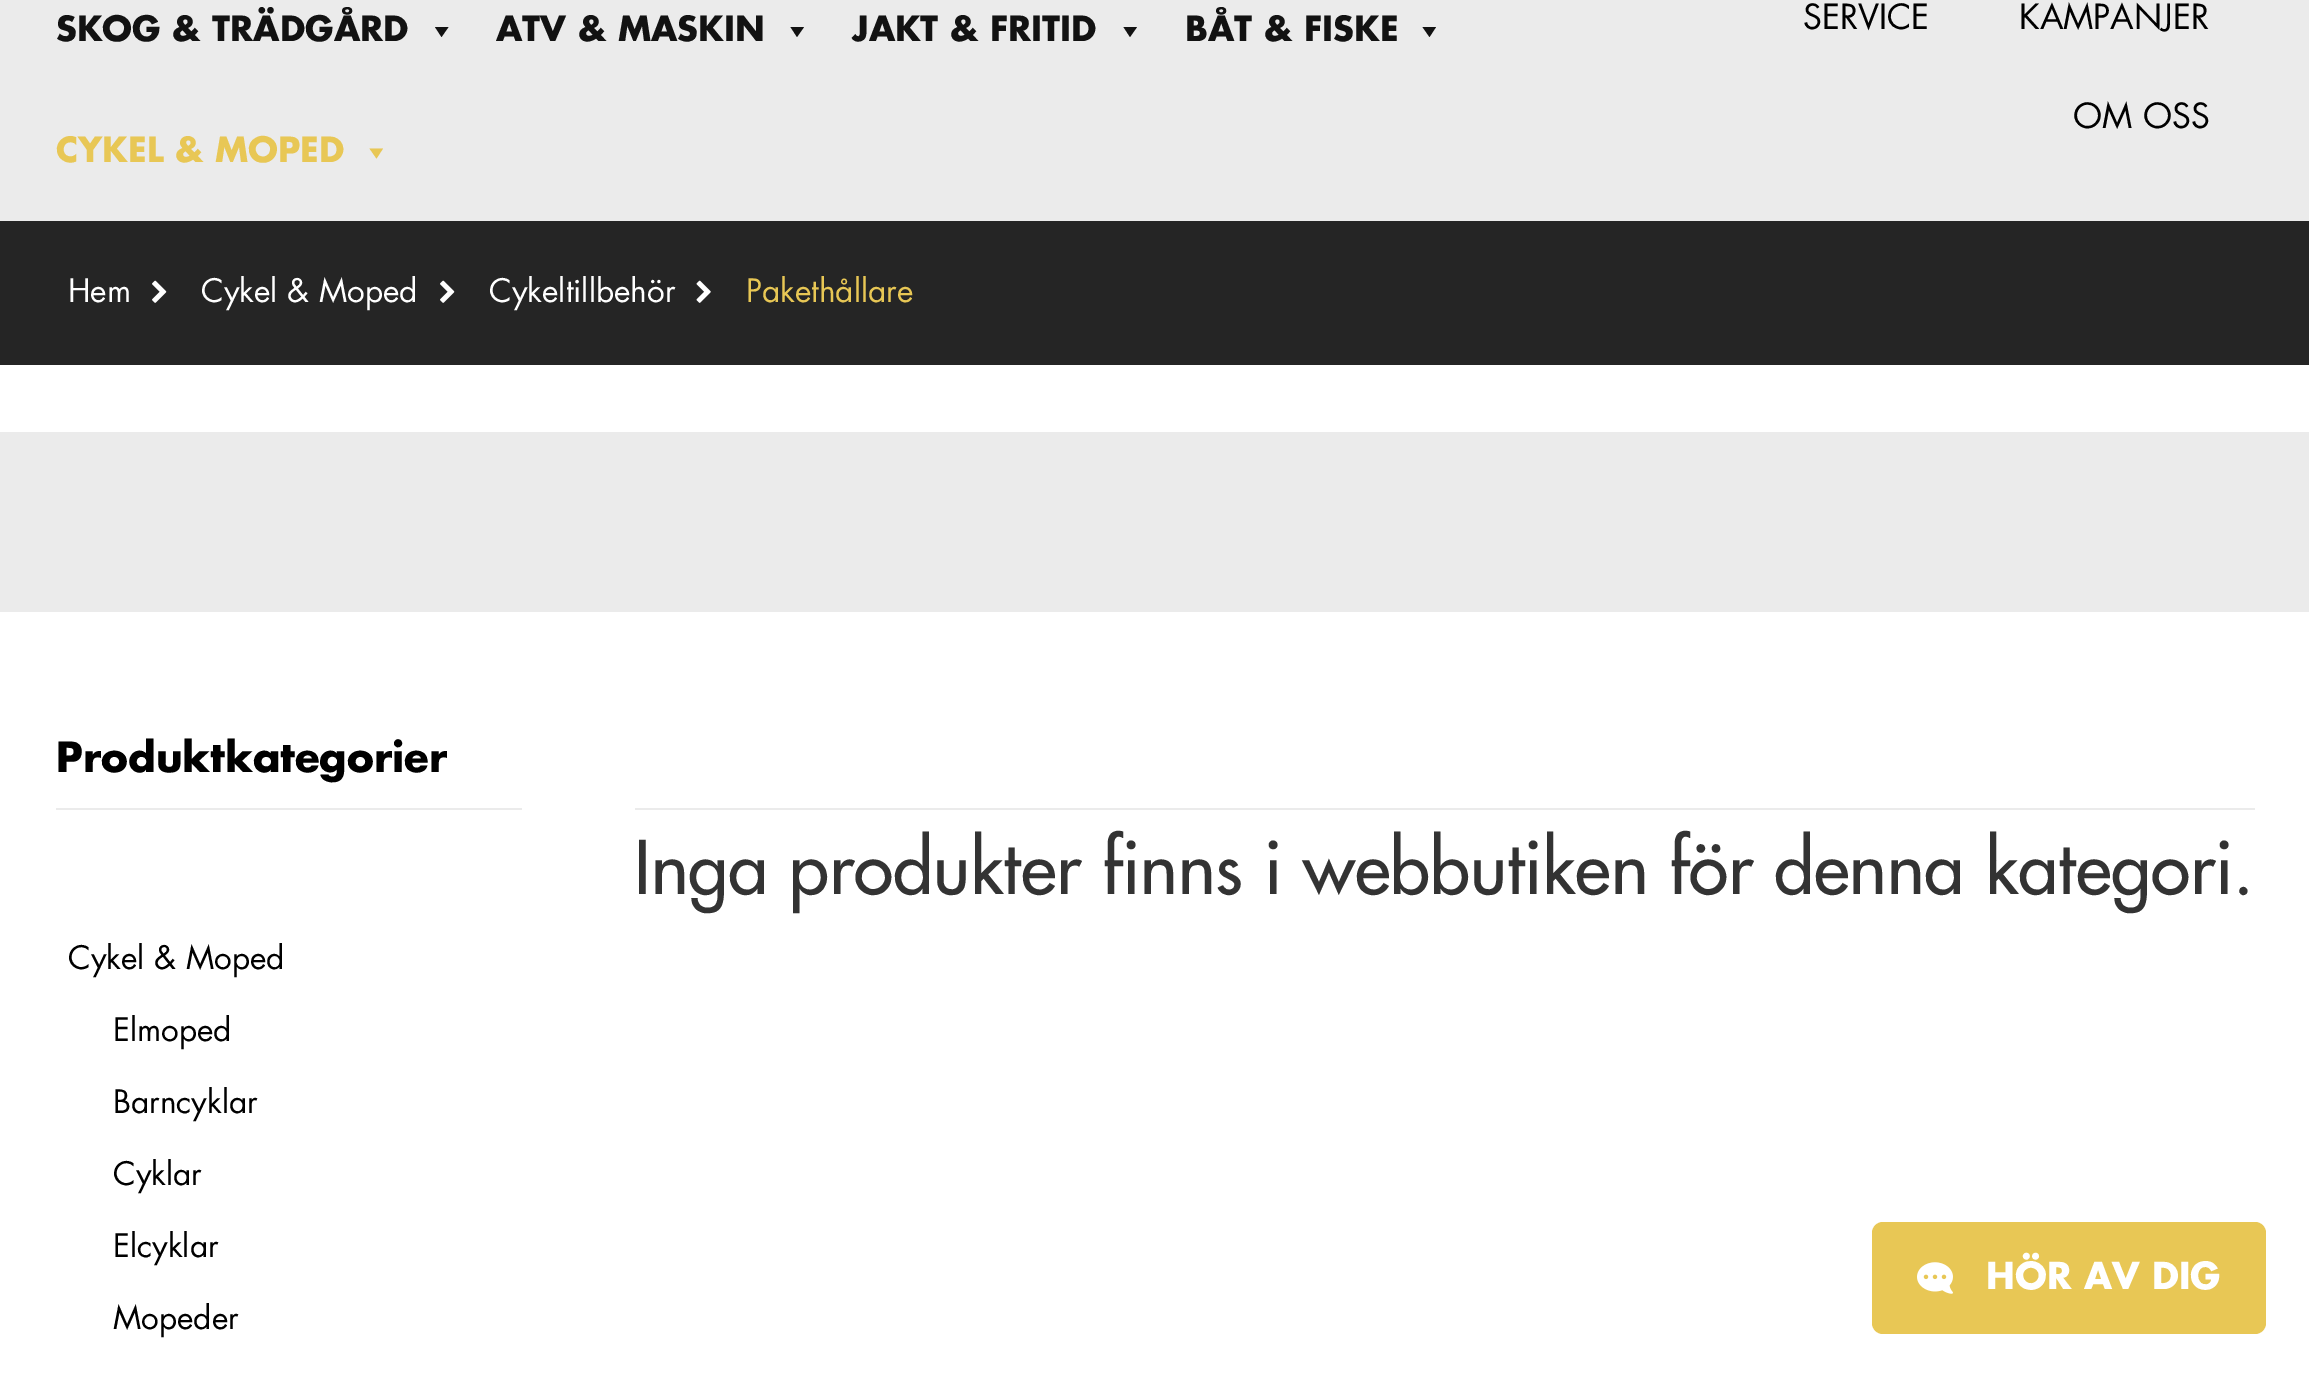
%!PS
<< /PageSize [2309 1378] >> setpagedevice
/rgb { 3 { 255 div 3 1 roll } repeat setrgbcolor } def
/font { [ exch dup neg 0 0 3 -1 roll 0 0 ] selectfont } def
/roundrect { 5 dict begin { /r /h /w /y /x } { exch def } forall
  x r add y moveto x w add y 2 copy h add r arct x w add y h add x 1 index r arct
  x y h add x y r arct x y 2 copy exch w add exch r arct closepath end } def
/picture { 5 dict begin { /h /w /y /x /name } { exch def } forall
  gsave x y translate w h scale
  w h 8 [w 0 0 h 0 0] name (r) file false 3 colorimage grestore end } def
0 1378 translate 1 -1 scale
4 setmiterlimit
255 255 255 rgb
0 0 2309 1378 rectfill
235 235 235 rgb
0 0 2309 221 rectfill
18 18 18 rgb
448.5 27 moveto 441.5 37 lineto 435 27 lineto closepath fill
804 27 moveto 797 37 lineto 790.5 27 lineto closepath fill
1137 27 moveto 1130 37 lineto 1123.5 27 lineto closepath fill
1436 27 moveto 1429.5 37 lineto 1422.5 27 lineto closepath fill
232 199 85 rgb
383 148.5 moveto 376.5 158.5 lineto 369.5 148.5 lineto closepath fill
37 37 37 rgb
0 221 2309 144 rectfill
(img/1.rgb) 152 280 15 23 picture
(img/1.rgb) 440 280 15 23 picture
(img/2.rgb) 696 280 15 23 picture
[
  [0 432 2309 180 235 235 235]
  [56 808 466 2 235 235 235]
  [635 808 1620 2 235 235 235]
] { aload pop rgb rectfill } forall
232 199 85 rgb
1872 1222 394 112 11 roundrect fill
(img/3.rgb) 1917 1262 36 32 picture
/Futura-Bold 33.75 font
18 18 18 rgb
[
  [(SKOG & TRÄDGÅRD) 56 41]
  [(ATV & MASKIN) 496 41]
  [(JAKT & FRITID) 852 41]
  [(BÅT & FISKE) 1185 41]
] { aload pop moveto show } forall
232 199 85 rgb
56 162 moveto (CYKEL & MOPED) show
/Futura-Regular 33.75 font
0 0 0 rgb
[
  [(SERVICE) 1803 29]
  [(KAMPANJER) 2019 29]
  [(OM OSS) 2073 128]
] { aload pop moveto show } forall
/Futura-Regular 31.5 font
255 255 255 rgb
[
  [(Hem) 68 302]
  [(Cykel & Moped) 201 302]
  [(Cykeltillbehör) 489 302]
] { aload pop moveto show } forall
232 199 85 rgb
746 302 moveto (Pakethållare) show
/Futura-Bold 40.5 font
0 0 0 rgb
56 772 moveto (Produktkategorier) show
/Futura-Regular 31.5 font
[
  [(Cykel & Moped) 68 969]
  [(Elmoped) 113 1041]
  [(Barncyklar) 113 1113]
  [(Cyklar) 113 1185]
  [(Elcyklar) 113 1257]
  [(Mopeder) 113 1329]
] { aload pop moveto show } forall
/Futura-Medium 72 font
51 51 51 rgb
634 894 moveto (Inga produkter finns i webbutiken för denna kategori.) show
/Futura-Bold 36 font
255 255 255 rgb
1986 1289 moveto (HÖR AV DIG) show
showpage
